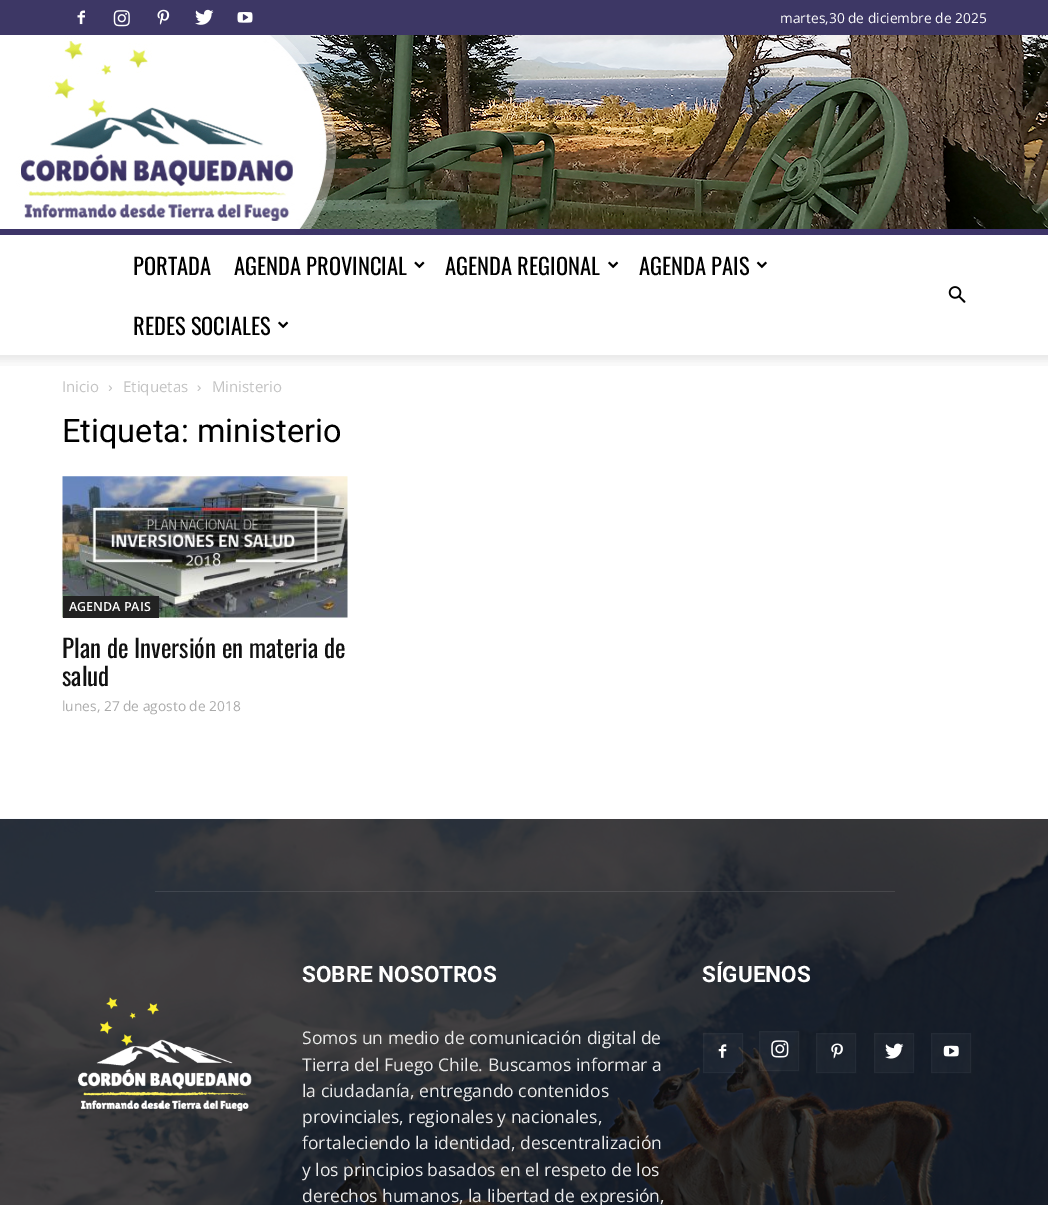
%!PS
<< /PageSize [1048 1205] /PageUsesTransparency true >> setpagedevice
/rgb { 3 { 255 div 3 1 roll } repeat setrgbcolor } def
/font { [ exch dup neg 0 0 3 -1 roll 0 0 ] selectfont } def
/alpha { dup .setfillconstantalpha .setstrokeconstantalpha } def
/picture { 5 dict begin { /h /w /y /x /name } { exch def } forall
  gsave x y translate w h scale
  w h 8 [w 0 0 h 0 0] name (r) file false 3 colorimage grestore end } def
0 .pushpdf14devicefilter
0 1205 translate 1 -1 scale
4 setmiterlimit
255 255 255 rgb
0 0 1048 1205 rectfill
61 55 101 rgb
0 0 1048 35 rectfill
(img/1.rgb) 77 10 8 15 picture
(img/2.rgb) 113 10 17 17 picture
(img/3.rgb) 157 9 13 16 picture
(img/4.rgb) 195 9 19 16 picture
(img/5.rgb) 237 12 16 11 picture
(img/6.rgb) 0 35 1048 200 picture
(img/7.rgb) 414 261 11 8 picture
(img/8.rgb) 608 261 11 8 picture
(img/9.rgb) 756 261 11 8 picture
(img/8.rgb) 278 321 11 8 picture
(img/10.rgb) 948 286 18 17 picture
(img/11.rgb) 0 355 1048 11 picture
(img/12.rgb) 108 385 4 6 picture
(img/13.rgb) 197 385 4 6 picture
(img/14.rgb) 62 476 286 142 picture
34 34 34 rgb
63 596 96 22 rectfill
17 17 17 rgb
0 819 1048 386 rectfill
(img/15.rgb) 0 818 1048 387 picture
0.1 alpha
255 255 255 rgb
155 891 740 1 rectfill
1 alpha
(img/16.rgb) 78 997 174 114 picture
0.03 alpha
703 1033 40 40 rectfill
1 alpha
(img/17.rgb) 718 1044 9 14 picture
0.03 alpha
703.5 1033.5 39 39 rectstroke
759 1031 40 40 rectfill
1 alpha
(img/18.rgb) 771 1040 18 18 picture
0.03 alpha
759.5 1031.5 39 39 rectstroke
816 1033 40 40 rectfill
1 alpha
(img/19.rgb) 831 1043 12 16 picture
0.03 alpha
816.5 1033.5 39 39 rectstroke
874 1033 40 40 rectfill
1 alpha
(img/20.rgb) 885 1043 19 16 picture
0.03 alpha
874.5 1033.5 39 39 rectstroke
931 1033 40 40 rectfill
1 alpha
(img/21.rgb) 943 1045 16 12 picture
0.03 alpha
931.5 1033.5 39 39 rectstroke
/OpenSans-Regular 13.75 font
1 alpha
780 23 moveto (martes,30 de diciembre de 2025) show
/Oswald-Regular 22.5 font
0 0 0 rgb
[
  [(PORTADA) 133 275]
  [(AGENDA PROVINCIAL) 234 275]
  [(AGENDA REGIONAL) 445 275]
  [(AGENDA PAIS) 639 275]
  [(REDES SOCIALES) 133 335]
] { aload pop moveto show } forall
/OpenSans-Regular 15 font
195 195 195 rgb
[
  [(Inicio) 62 392]
  [(Etiquetas) 123 392]
  [(Ministerio) 212 392]
] { aload pop moveto show } forall
/Roboto-Regular 32.5 font
0 0 0 rgb
62 442 moveto (Etiqueta: ministerio) show
/OpenSans-SemiBold 12.5 font
255 255 255 rgb
69 611 moveto (AGENDA PAIS) show
/Oswald-Regular 25 font
17 17 17 rgb
62 658 moveto (Plan de Inversión en materia de) show
62 686 moveto (salud) show
/OpenSans-Regular 13.75 font
170 170 170 rgb
62 711 moveto (lunes, 27 de agosto de 2018) show
/Roboto-Bold 22.5 font
255 255 255 rgb
302 982 moveto (SOBRE NOSOTROS) show
/OpenSans-Regular 17.5 font
234 234 234 rgb
[
  [(Somos un medio de comunicación digital de) 302 1044]
  [(Tierra del Fuego Chile. Buscamos informar a) 302 1071]
  [(la ciudadanía, entregando contenidos) 302 1097]
  [(provinciales, regionales y nacionales,) 302 1123]
  [(fortaleciendo la identidad, descentralización) 302 1149]
  [(y los principios basados en el respeto de los) 302 1176]
  [(derechos humanos, la libertad de expresión,) 302 1202]
] { aload pop moveto show } forall
/Roboto-Bold 22.5 font
255 255 255 rgb
702 982 moveto (SÍGUENOS) show
.poppdf14devicefilter showpage
